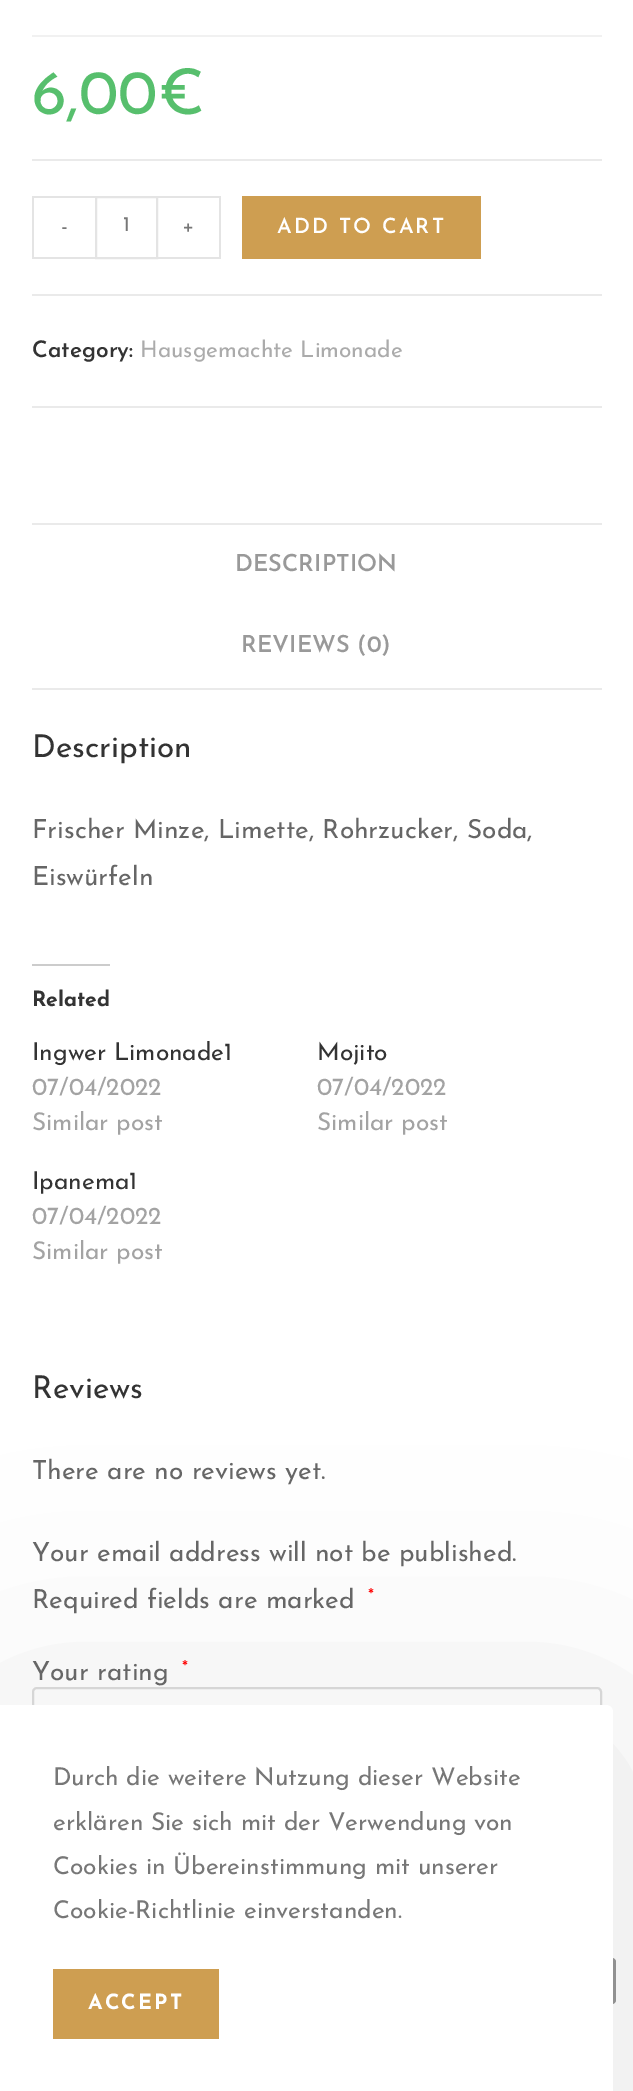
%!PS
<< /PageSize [633 2091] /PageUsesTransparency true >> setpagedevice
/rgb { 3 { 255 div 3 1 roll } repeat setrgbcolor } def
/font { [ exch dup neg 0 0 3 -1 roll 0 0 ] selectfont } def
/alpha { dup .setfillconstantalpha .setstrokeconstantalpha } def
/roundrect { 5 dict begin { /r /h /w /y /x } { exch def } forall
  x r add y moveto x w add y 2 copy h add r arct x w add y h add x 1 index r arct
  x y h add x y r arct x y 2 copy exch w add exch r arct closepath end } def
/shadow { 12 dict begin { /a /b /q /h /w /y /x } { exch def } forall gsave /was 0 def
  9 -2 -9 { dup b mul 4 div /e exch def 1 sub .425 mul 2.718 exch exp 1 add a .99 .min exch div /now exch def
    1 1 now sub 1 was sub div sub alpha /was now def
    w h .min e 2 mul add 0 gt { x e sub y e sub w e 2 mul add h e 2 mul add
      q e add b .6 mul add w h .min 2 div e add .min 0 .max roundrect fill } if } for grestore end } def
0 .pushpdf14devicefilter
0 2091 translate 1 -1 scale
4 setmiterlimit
255 255 255 rgb
0 0 633 2091 rectfill
[
  [32 35 570 2 241 241 241]
  [32 159 570 2 234 234 234]
  [32 294 570 2 234 234 234]
  [32 196 63 2 228 228 228]
  [32 257 63 2 228 228 228]
  [32 196 2 63 228 228 228]
] { aload pop rgb rectfill } forall
2 setlinewidth
96 197 61 61 rectstroke
[
  [158 196 63 2 228 228 228]
  [219 196 2 63 228 228 228]
  [158 257 63 2 228 228 228]
  [242 196 239 63 206 158 81]
  [32 406 570 2 234 234 234]
  [32 523 570 2 234 234 234]
  [32 688 570 2 234 234 234]
  [32 964 78 2 204 204 204]
] { aload pop rgb rectfill } forall
221 221 221 rgb
33 1688 568 68 4 roundrect stroke
0.4 alpha
0 0 0 rgb
571 1958 45 46 4 roundrect fill
1 alpha
0 1740 613 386 7 131 0.1 shadow
255 255 255 rgb
0 1705 moveto 606 1705 lineto 610 1705 613 1708 613 1712 curveto 613 2091 lineto 0 2091 lineto closepath fill
206 158 81 rgb
53 1969 166 70 rectfill
/JosefinSans-Regular 63 font
87 191 109 rgb
32 114 moveto (6,00€) show
/JosefinSans-Regular 22.75 font
119 119 119 rgb
61 233 moveto (-) show
/JosefinSans-Regular 21 font
123 231 moveto (1) show
/JosefinSans-Regular 22.75 font
182 233 moveto (+) show
/JosefinSans-SemiBold 21 font
255 255 255 rgb
277 233 moveto 2.1 0 (ADD TO CART) ashow
/JosefinSans-SemiBold 22.75 font
51 51 51 rgb
32 357 moveto (Category:) show
/JosefinSans-Regular 22.75 font
171 171 171 rgb
140 357 moveto (Hausgemachte Limonade) show
/JosefinSans-SemiBold 23.5 font
153 153 153 rgb
235 571 moveto (DESCRIPTION) show
241 652 moveto (REVIEWS \(0\)) show
/JosefinSans-Regular 31.5 font
51 51 51 rgb
32 757 moveto (Description) show
/JosefinSans-Regular 26.25 font
102 102 102 rgb
32 838 moveto (Frischer Minze, Limette, Rohrzucker, Soda,) show
32 885 moveto (Eiswürfeln) show
/JosefinSans-Bold 21 font
51 51 51 rgb
32 1006 moveto (Related) show
/JosefinSans-Regular 24.5 font
32 1060 moveto (Ingwer Limonade1) show
163 163 163 rgb
32 1095 moveto (07/04/2022) show
32 1130 moveto (Similar post) show
51 51 51 rgb
317 1060 moveto (Mojito) show
163 163 163 rgb
317 1095 moveto (07/04/2022) show
317 1130 moveto (Similar post) show
51 51 51 rgb
32 1189 moveto (Ipanema1) show
163 163 163 rgb
32 1224 moveto (07/04/2022) show
32 1259 moveto (Similar post) show
/JosefinSans-Regular 31.5 font
51 51 51 rgb
32 1398 moveto (Reviews) show
/JosefinSans-Regular 26.25 font
102 102 102 rgb
[
  [(There are no reviews yet.) 32 1479]
  [(Your email address will not be published.) 32 1561]
  [(Required fields are marked) 32 1608]
] { aload pop moveto show } forall
/JosefinSans-Regular 18 font
255 0 0 rgb
368 1601 moveto (*) show
/JosefinSans-Regular 26.25 font
102 102 102 rgb
32 1680 moveto (Your rating) show
/JosefinSans-Regular 18 font
255 0 0 rgb
182 1673 moveto (*) show
/JosefinSans-Regular 24.5 font
119 119 119 rgb
[
  [(Durch die weitere Nutzung dieser Website) 53 1785]
  [(erklären Sie sich mit der Verwendung von) 53 1830]
  [(Cookies in Übereinstimmung mit unserer) 53 1874]
  [(Cookie-Richtlinie einverstanden.) 53 1918]
] { aload pop moveto show } forall
/JosefinSans-Bold 21 font
255 255 255 rgb
88 2009 moveto 2.1 0 (ACCEPT) ashow
.poppdf14devicefilter showpage
